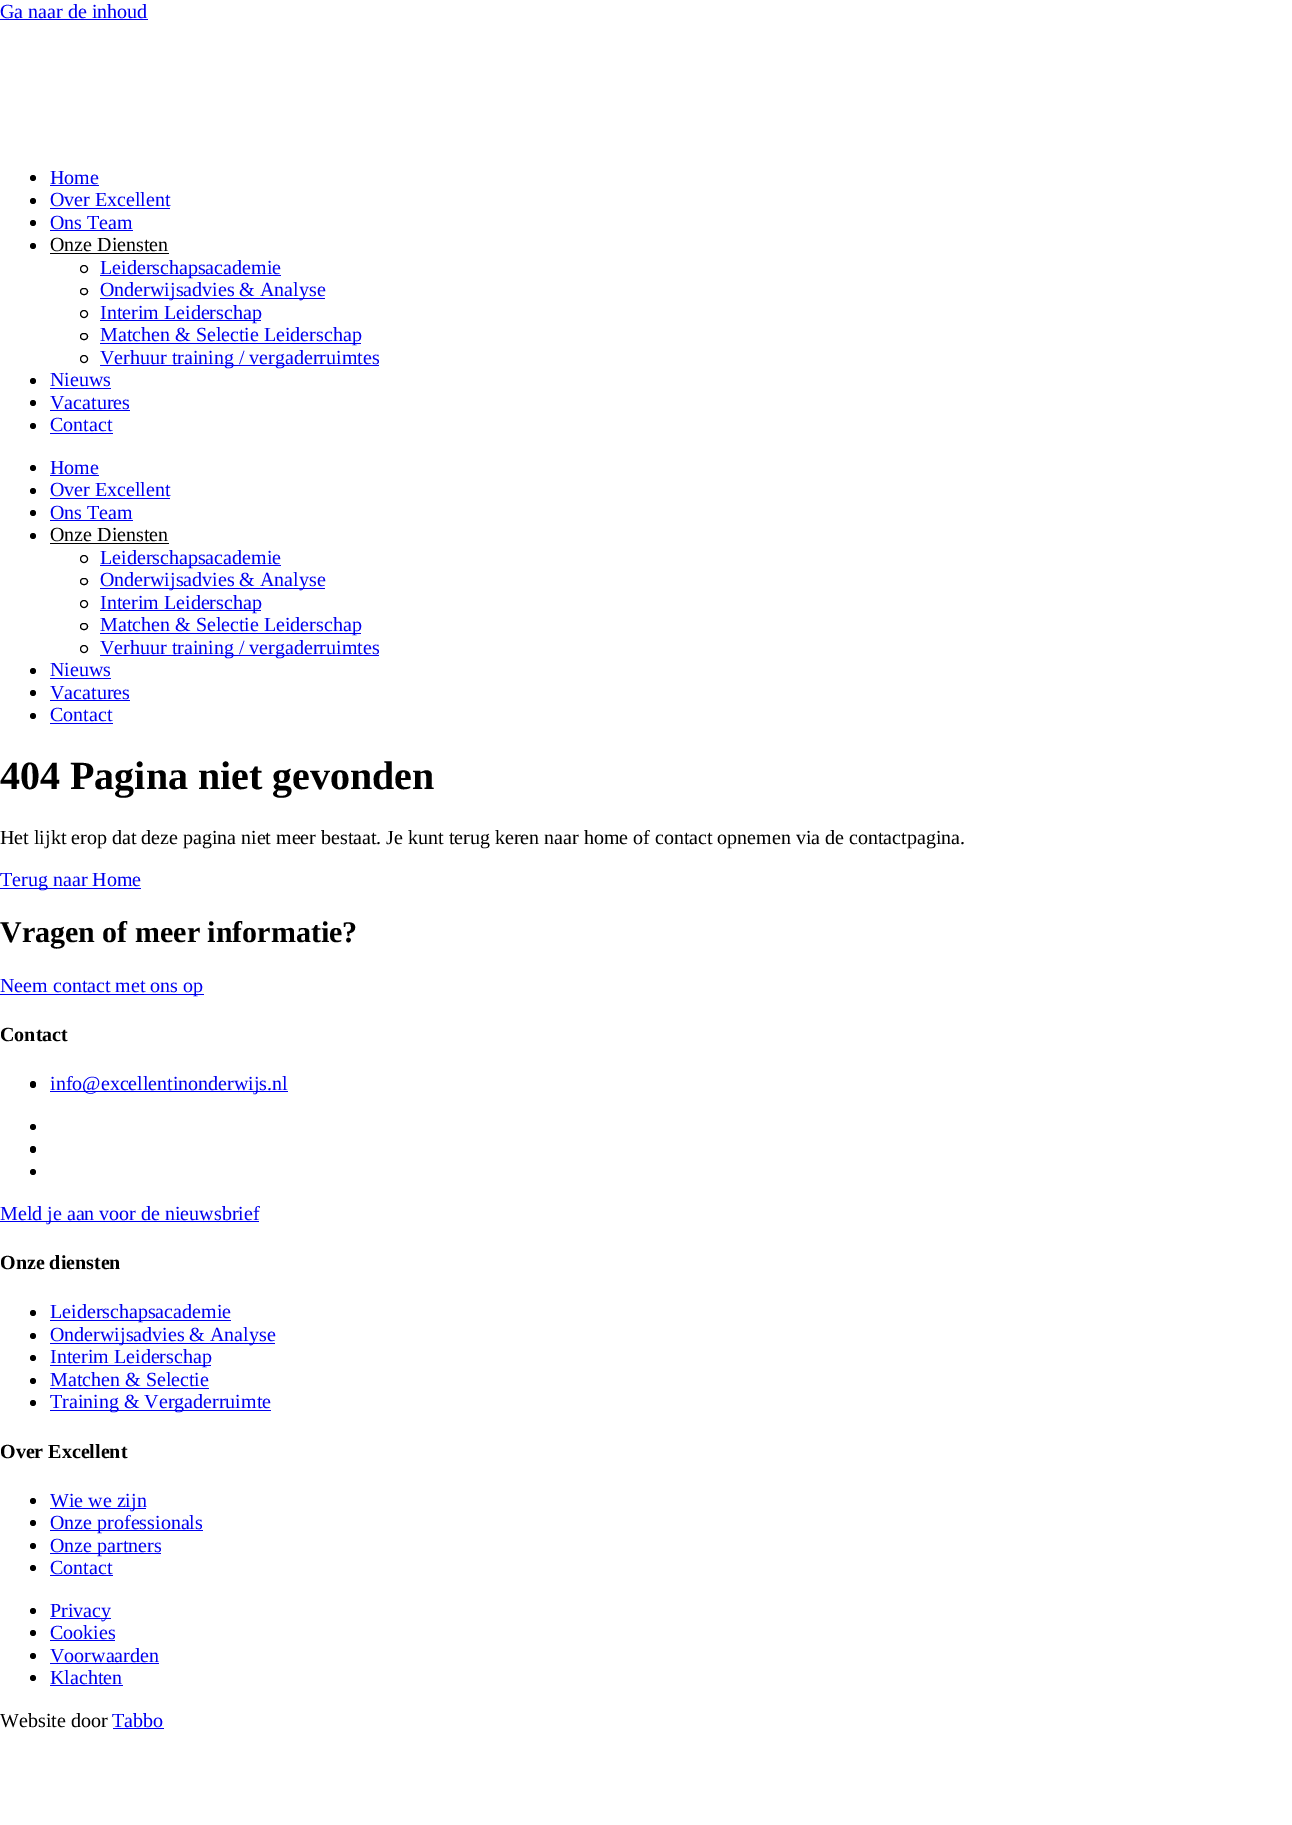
%!PS
<< /PageSize [1292 1825] >> setpagedevice
/rgb { 3 { 255 div 3 1 roll } repeat setrgbcolor } def
/font { [ exch dup neg 0 0 3 -1 roll 0 0 ] selectfont } def
/circle { newpath 0 360 arc closepath } def
/roundrect { 5 dict begin { /r /h /w /y /x } { exch def } forall
  x r add y moveto x w add y 2 copy h add r arct x w add y h add x 1 index r arct
  x y h add x y r arct x y 2 copy exch w add exch r arct closepath end } def
0 1825 translate 1 -1 scale
4 setmiterlimit
255 255 255 rgb
0 0 1292 1825 rectfill
0 0 238 rgb
0 19 148 1 rectfill
0 0 0 rgb
33 178 3 circle fill
0 0 238 rgb
50 185 49 1 rectfill
0 0 0 rgb
33 201 3 circle fill
0 0 238 rgb
50 208 120 1 rectfill
0 0 0 rgb
33 223 3 circle fill
0 0 238 rgb
50 230 83 1 rectfill
0 0 0 rgb
33 246 3 circle fill
50 253 119 1 rectfill
84 269 3.5 circle stroke
0 0 238 rgb
100 275 181 1 rectfill
0 0 0 rgb
80.5 288.5 7 6 3 roundrect stroke
0 0 238 rgb
100 298 225 1 rectfill
0 0 0 rgb
84 314 3.5 circle stroke
0 0 238 rgb
100 320 161 1 rectfill
0 0 0 rgb
80.5 333.5 7 6 3 roundrect stroke
0 0 238 rgb
100 343 261 1 rectfill
0 0 0 rgb
84 359 3.5 circle stroke
0 0 238 rgb
100 365 279 1 rectfill
0 0 0 rgb
33 381 3 circle fill
0 0 238 rgb
50 388 61 1 rectfill
0 0 0 rgb
33 403 3 circle fill
0 0 238 rgb
50 410 80 1 rectfill
0 0 0 rgb
33 426 3 circle fill
0 0 238 rgb
50 433 63 1 rectfill
0 0 0 rgb
33 468 3 circle fill
0 0 238 rgb
50 475 49 1 rectfill
0 0 0 rgb
33 491 3 circle fill
0 0 238 rgb
50 498 120 1 rectfill
0 0 0 rgb
33 513 3 circle fill
0 0 238 rgb
50 520 83 1 rectfill
0 0 0 rgb
33 536 3 circle fill
50 543 119 1 rectfill
84 559 3.5 circle stroke
0 0 238 rgb
100 565 181 1 rectfill
0 0 0 rgb
80.5 578.5 7 6 3 roundrect stroke
0 0 238 rgb
100 588 225 1 rectfill
0 0 0 rgb
84 604 3.5 circle stroke
0 0 238 rgb
100 610 161 1 rectfill
0 0 0 rgb
80.5 623.5 7 6 3 roundrect stroke
0 0 238 rgb
100 633 261 1 rectfill
0 0 0 rgb
84 649 3.5 circle stroke
0 0 238 rgb
100 655 279 1 rectfill
0 0 0 rgb
33 671 3 circle fill
0 0 238 rgb
50 678 61 1 rectfill
0 0 0 rgb
33 693 3 circle fill
0 0 238 rgb
50 700 80 1 rectfill
0 0 0 rgb
33 716 3 circle fill
[
  [50 723 63 1 0 0 238]
  [0 888 141 1 0 0 238]
  [0 994 204 1 0 0 238]
] { aload pop rgb rectfill } forall
0 0 0 rgb
30 1081 6 7 3 roundrect fill
0 0 238 rgb
50 1091 238 1 rectfill
0 0 0 rgb
33 1127 3 circle fill
30 1146 6 7 3 roundrect fill
33 1172 3 circle fill
0 0 238 rgb
0 1221 259 1 rectfill
0 0 0 rgb
33 1313 3 circle fill
0 0 238 rgb
50 1320 181 1 rectfill
0 0 0 rgb
33 1336 3 circle fill
0 0 238 rgb
50 1343 225 1 rectfill
0 0 0 rgb
33 1358 3 circle fill
0 0 238 rgb
50 1365 161 1 rectfill
0 0 0 rgb
33 1381 3 circle fill
0 0 238 rgb
50 1388 159 1 rectfill
0 0 0 rgb
33 1403 3 circle fill
0 0 238 rgb
50 1410 221 1 rectfill
0 0 0 rgb
33 1501 3 circle fill
0 0 238 rgb
50 1508 96 1 rectfill
0 0 0 rgb
33 1523 3 circle fill
0 0 238 rgb
50 1530 153 1 rectfill
0 0 0 rgb
33 1546 3 circle fill
0 0 238 rgb
50 1553 111 1 rectfill
0 0 0 rgb
33 1568 3 circle fill
0 0 238 rgb
50 1575 63 1 rectfill
0 0 0 rgb
33 1611 3 circle fill
0 0 238 rgb
50 1618 61 1 rectfill
0 0 0 rgb
33 1633 3 circle fill
0 0 238 rgb
50 1640 65 1 rectfill
0 0 0 rgb
33 1656 3 circle fill
0 0 238 rgb
50 1663 109 1 rectfill
0 0 0 rgb
33 1678 3 circle fill
0 0 238 rgb
50 1685 73 1 rectfill
113 1728 51 1 rectfill
/LiberationSerif-Regular 20 font
[
  [(Ga naar de inhoud) 0 18]
  [(Home) 50 184]
  [(Over Excellent) 50 206]
  [(Ons Team) 50 229]
] { aload pop moveto show } forall
0 0 0 rgb
50 251 moveto (Onze Diensten) show
0 0 238 rgb
[
  [(Leiderschapsacademie) 100 274]
  [(Onderwijsadvies & Analyse) 100 296]
  [(Interim Leiderschap) 100 319]
  [(Matchen & Selectie Leiderschap) 100 341]
  [(Verhuur training / vergaderruimtes) 100 364]
  [(Nieuws) 50 386]
  [(Vacatures) 50 409]
  [(Contact) 50 431]
  [(Home) 50 474]
  [(Over Excellent) 50 496]
  [(Ons Team) 50 519]
] { aload pop moveto show } forall
0 0 0 rgb
50 541 moveto (Onze Diensten) show
0 0 238 rgb
[
  [(Leiderschapsacademie) 100 564]
  [(Onderwijsadvies & Analyse) 100 586]
  [(Interim Leiderschap) 100 609]
  [(Matchen & Selectie Leiderschap) 100 631]
  [(Verhuur training / vergaderruimtes) 100 654]
  [(Nieuws) 50 676]
  [(Vacatures) 50 699]
  [(Contact) 50 721]
] { aload pop moveto show } forall
/LiberationSerif-Bold 40 font
0 0 0 rgb
0 789 moveto (404 Pagina niet gevonden) show
/LiberationSerif-Regular 20 font
0 844 moveto (Het lijkt erop dat deze pagina niet meer bestaat. Je kunt terug keren naar home of contact opnemen via de contactpagina.) show
0 0 238 rgb
0 886 moveto (Terug naar Home) show
/LiberationSerif-Bold 30 font
0 0 0 rgb
0 942 moveto (Vragen of meer informatie?) show
/LiberationSerif-Regular 20 font
0 0 238 rgb
0 992 moveto (Neem contact met ons op) show
/LiberationSerif-Bold 20 font
0 0 0 rgb
0 1041 moveto (Contact) show
/LiberationSerif-Regular 20 font
0 0 238 rgb
50 1090 moveto (info@excellentinonderwijs.nl) show
0 1220 moveto (Meld je aan voor de nieuwsbrief) show
/LiberationSerif-Bold 20 font
0 0 0 rgb
0 1269 moveto (Onze diensten) show
/LiberationSerif-Regular 20 font
0 0 238 rgb
[
  [(Leiderschapsacademie) 50 1318]
  [(Onderwijsadvies & Analyse) 50 1341]
  [(Interim Leiderschap) 50 1363]
  [(Matchen & Selectie) 50 1386]
  [(Training & Vergaderruimte) 50 1408]
] { aload pop moveto show } forall
/LiberationSerif-Bold 20 font
0 0 0 rgb
0 1458 moveto (Over Excellent) show
/LiberationSerif-Regular 20 font
0 0 238 rgb
[
  [(Wie we zijn) 50 1507]
  [(Onze professionals) 50 1529]
  [(Onze partners) 50 1552]
  [(Contact) 50 1574]
  [(Privacy) 50 1617]
  [(Cookies) 50 1639]
  [(Voorwaarden) 50 1662]
  [(Klachten) 50 1684]
] { aload pop moveto show } forall
0 0 0 rgb
0 1727 moveto (Website door) show
0 0 238 rgb
112 1727 moveto (Tabbo) show
showpage
